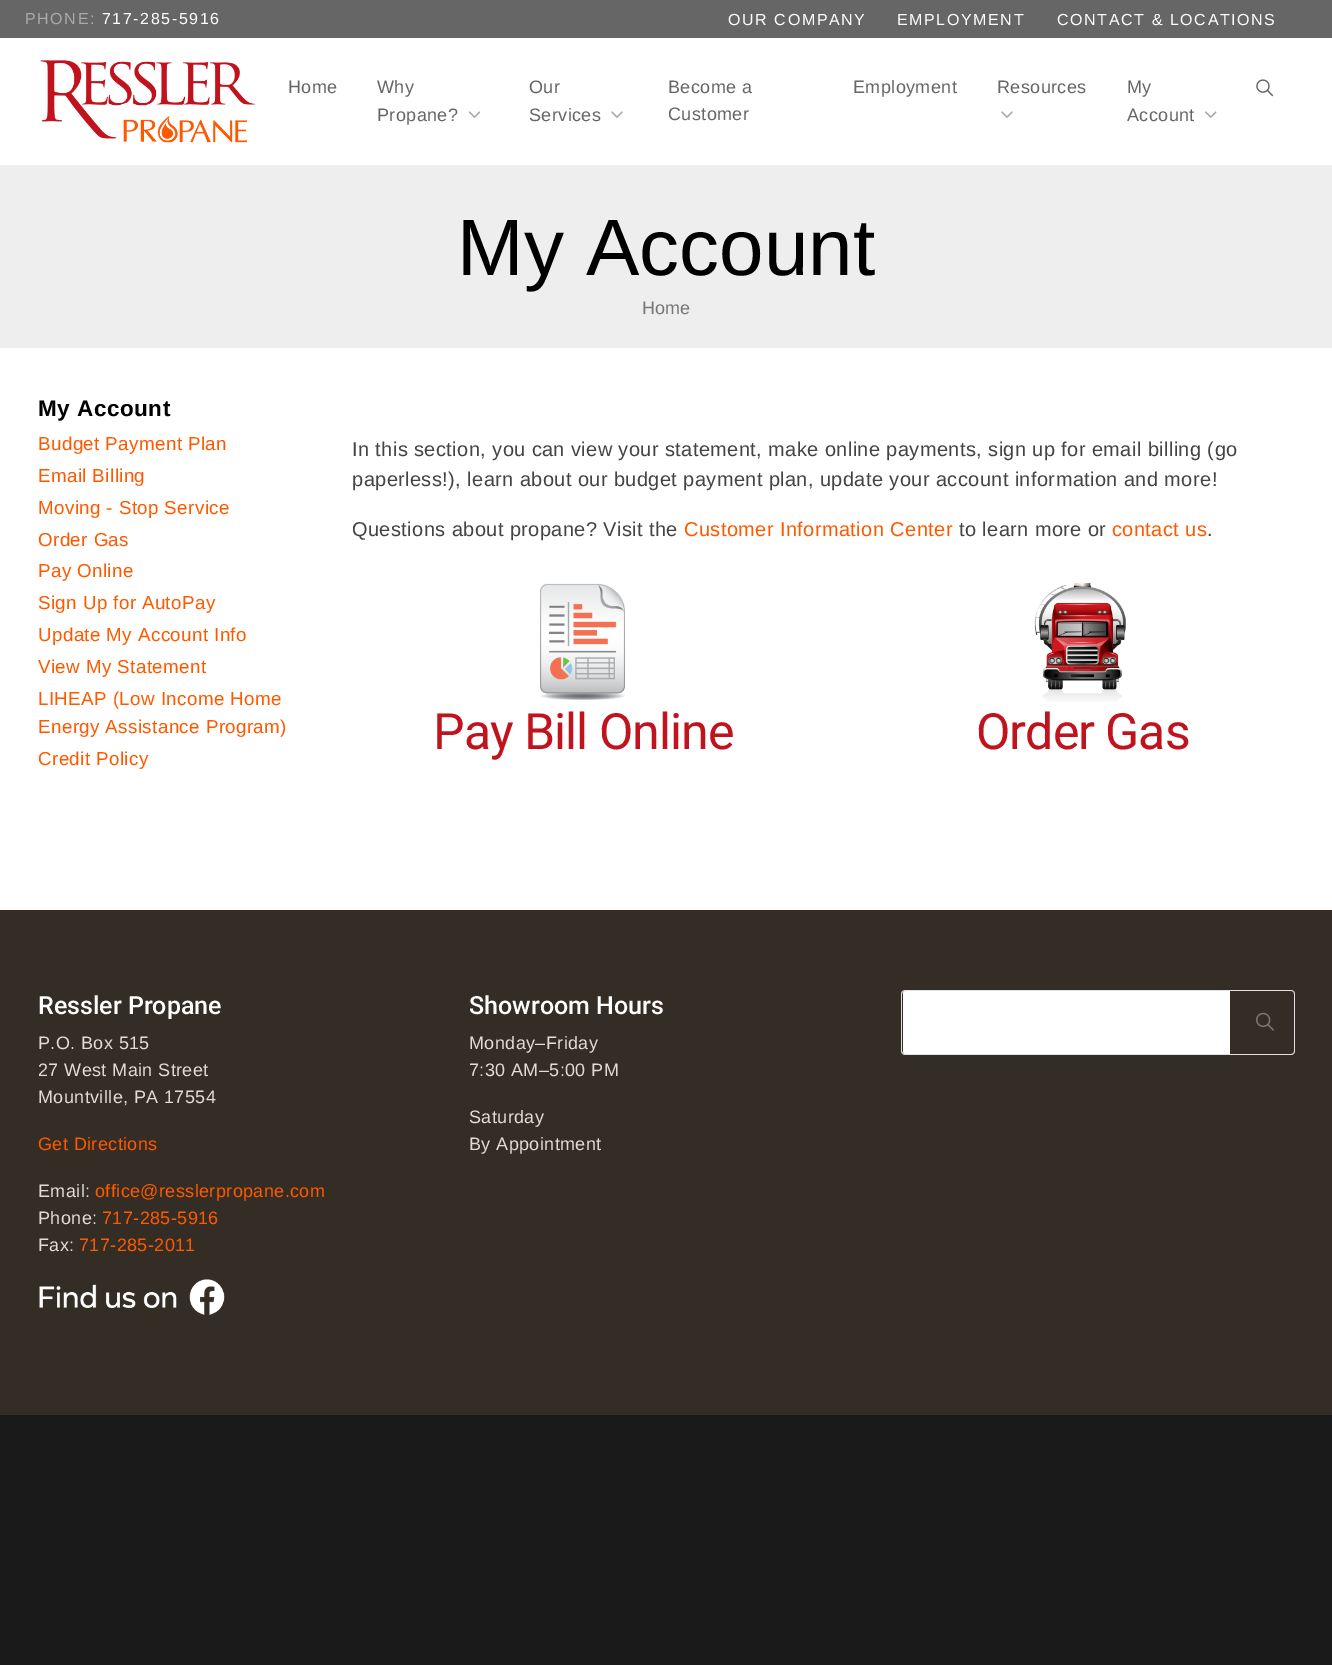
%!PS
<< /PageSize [1332 1665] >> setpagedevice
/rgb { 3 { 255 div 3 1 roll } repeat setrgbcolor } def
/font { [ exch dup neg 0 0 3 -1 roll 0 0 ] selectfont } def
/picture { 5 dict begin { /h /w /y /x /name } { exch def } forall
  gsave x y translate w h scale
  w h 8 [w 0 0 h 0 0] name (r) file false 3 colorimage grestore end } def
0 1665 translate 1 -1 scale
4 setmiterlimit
26 26 26 rgb
0 0 1332 1665 rectfill
[
  [0 38 1332 872 255 255 255]
  [0 0 1332 38 102 102 102]
  [0 165 1332 1 239 239 239]
] { aload pop rgb rectfill } forall
(img/1.rgb) 40 60 216 83 picture
(img/2.rgb) 468 111 13 7 picture
(img/3.rgb) 611 111 12 7 picture
(img/3.rgb) 1001 111 12 7 picture
(img/4.rgb) 1205 111 12 7 picture
(img/5.rgb) 1256 79 18 18 picture
238 238 238 rgb
0 166 1332 182 rectfill
(img/6.rgb) 540 583 85 117 picture
(img/7.rgb) 1034 583 92 119 picture
52 45 37 rgb
0 910 1332 505 rectfill
(img/8.rgb) 39 1279 186 36 picture
255 255 255 rgb
905.5 991 moveto 1230 991 lineto 1230 1054 lineto 905.5 1054 lineto 904 1054 903 1053 903 1051.5 curveto 903 993.5 lineto 903 992 904 991 905.5 991 curveto closepath fill
225 225 225 rgb
905 990 moveto 1230 990 lineto 1230 1055 lineto 905 1055 lineto 903 1055 901 1053 901 1051 curveto 901 994 lineto 901 992 903 990 905 990 curveto closepath 905 991 moveto 1230 991 lineto 1230 1054 lineto 905 1054 lineto 904 1054 902 1053 902 1051 curveto 902 994 lineto 902 992 904 991 905 991 curveto closepath eofill
1230 990 moveto 1291 990 lineto 1293 990 1295 992 1295 994 curveto 1295 1051 lineto 1295 1053 1293 1055 1291 1055 curveto 1230 1055 lineto closepath 1230 991 moveto 1291 991 lineto 1293 991 1294 992 1294 994 curveto 1294 1051 lineto 1294 1053 1293 1054 1291 1054 curveto 1230 1054 lineto closepath eofill
(img/9.rgb) 1256 1012 18 19 picture
/LiberationSans-Regular 16 font
170 170 170 rgb
25 24 moveto 1.6 0 (PHONE:) ashow
255 255 255 rgb
102 24 moveto 1.6 0 (717-285-5916) ashow
728 25 moveto 1.6 0 (OUR COMPANY) ashow
897 25 moveto 1.6 0 (EMPLOYMENT) ashow
1057 25 moveto 1.6 0 (CONTACT & LOCATIONS) ashow
/LiberationSans-Regular 18 font
102 102 102 rgb
288 93 moveto 0.4 0 (Home) ashow
377 93 moveto 0.4 0 (Why) ashow
377 121 moveto 0.4 0 (Propane?) ashow
529 93 moveto 0.4 0 (Our) ashow
529 121 moveto 0.4 0 (Services) ashow
668 93 moveto 0.4 0 (Become a) ashow
668 120 moveto 0.4 0 (Customer) ashow
853 93 moveto 0.4 0 (Employment) ashow
997 93 moveto 0.4 0 (Resources) ashow
1127 93 moveto 0.4 0 (My) ashow
1127 121 moveto 0.4 0 (Account) ashow
/LiberationSans-Regular 80 font
0 0 0 rgb
457 275 moveto (My Account) show
/LiberationSans-Regular 18 font
119 119 119 rgb
642 314 moveto (Home) show
/LiberationSans-Bold 22.5 font
0 0 0 rgb
38 416 moveto 0.5 0 (My Account) ashow
/LiberationSans-Regular 18.75 font
255 89 0 rgb
38 450 moveto 0.4 0 (Budget Payment Plan) ashow
38 482 moveto 0.4 0 (Email Billing) ashow
38 514 moveto 0.4 0 (Moving - Stop Service) ashow
38 546 moveto 0.4 0 (Order Gas) ashow
38 577 moveto 0.4 0 (Pay Online) ashow
38 609 moveto 0.4 0 (Sign Up for AutoPay) ashow
38 641 moveto 0.4 0 (Update My Account Info) ashow
38 673 moveto 0.4 0 (View My Statement) ashow
38 705 moveto 0.4 0 (LIHEAP \(Low Income Home) ashow
38 733 moveto 0.4 0 (Energy Assistance Program\)) ashow
38 765 moveto 0.4 0 (Credit Policy) ashow
/LiberationSans-Regular 20 font
68 68 68 rgb
352 456 moveto 0.4 0 (In this section, you can view your statement, make online payments, sign up for email billing \(go) ashow
352 486 moveto 0.4 0 (paperless!\), learn about our budget payment plan, update your account information and more!) ashow
352 536 moveto 0.4 0 (Questions about propane? Visit the) ashow
255 89 0 rgb
684 536 moveto 0.4 0 (Customer Information Center) ashow
68 68 68 rgb
959 536 moveto 0.4 0 (to learn more or) ashow
255 89 0 rgb
1112 536 moveto 0.4 0 (contact us) ashow
68 68 68 rgb
1207 536 moveto 0.4 0 (.) ashow
/Roboto-Regular 50 font
193 19 30 rgb
433 749 moveto -1 0 (Pay Bill Online) ashow
976 749 moveto -1 0 (Order Gas) ashow
/Roboto-Medium 25 font
255 255 255 rgb
38 1014 moveto (Ressler Propane) show
/LiberationSans-Regular 18 font
226 220 214 rgb
38 1049 moveto 0.4 0 (P.O. Box 515) ashow
38 1076 moveto 0.4 0 (27 West Main Street) ashow
38 1103 moveto 0.4 0 (Mountville, PA 17554) ashow
255 89 0 rgb
38 1150 moveto 0.4 0 (Get Directions) ashow
226 220 214 rgb
38 1197 moveto 0.4 0 (Email:) ashow
255 89 0 rgb
95 1197 moveto 0.4 0 (office@resslerpropane.com) ashow
226 220 214 rgb
38 1224 moveto 0.4 0 (Phone:) ashow
255 89 0 rgb
102 1224 moveto 0.4 0 (717-285-5916) ashow
226 220 214 rgb
38 1251 moveto 0.4 0 (Fax:) ashow
255 89 0 rgb
79 1251 moveto 0.4 0 (717-285-2011) ashow
/Roboto-Medium 25 font
255 255 255 rgb
469 1014 moveto (Showroom Hours) show
/LiberationSans-Regular 18 font
226 220 214 rgb
469 1049 moveto 0.4 0 (Monday–Friday) ashow
469 1076 moveto 0.4 0 (7:30 AM–5:00 PM) ashow
469 1123 moveto 0.4 0 (Saturday) ashow
469 1150 moveto 0.4 0 (By Appointment) ashow
showpage
